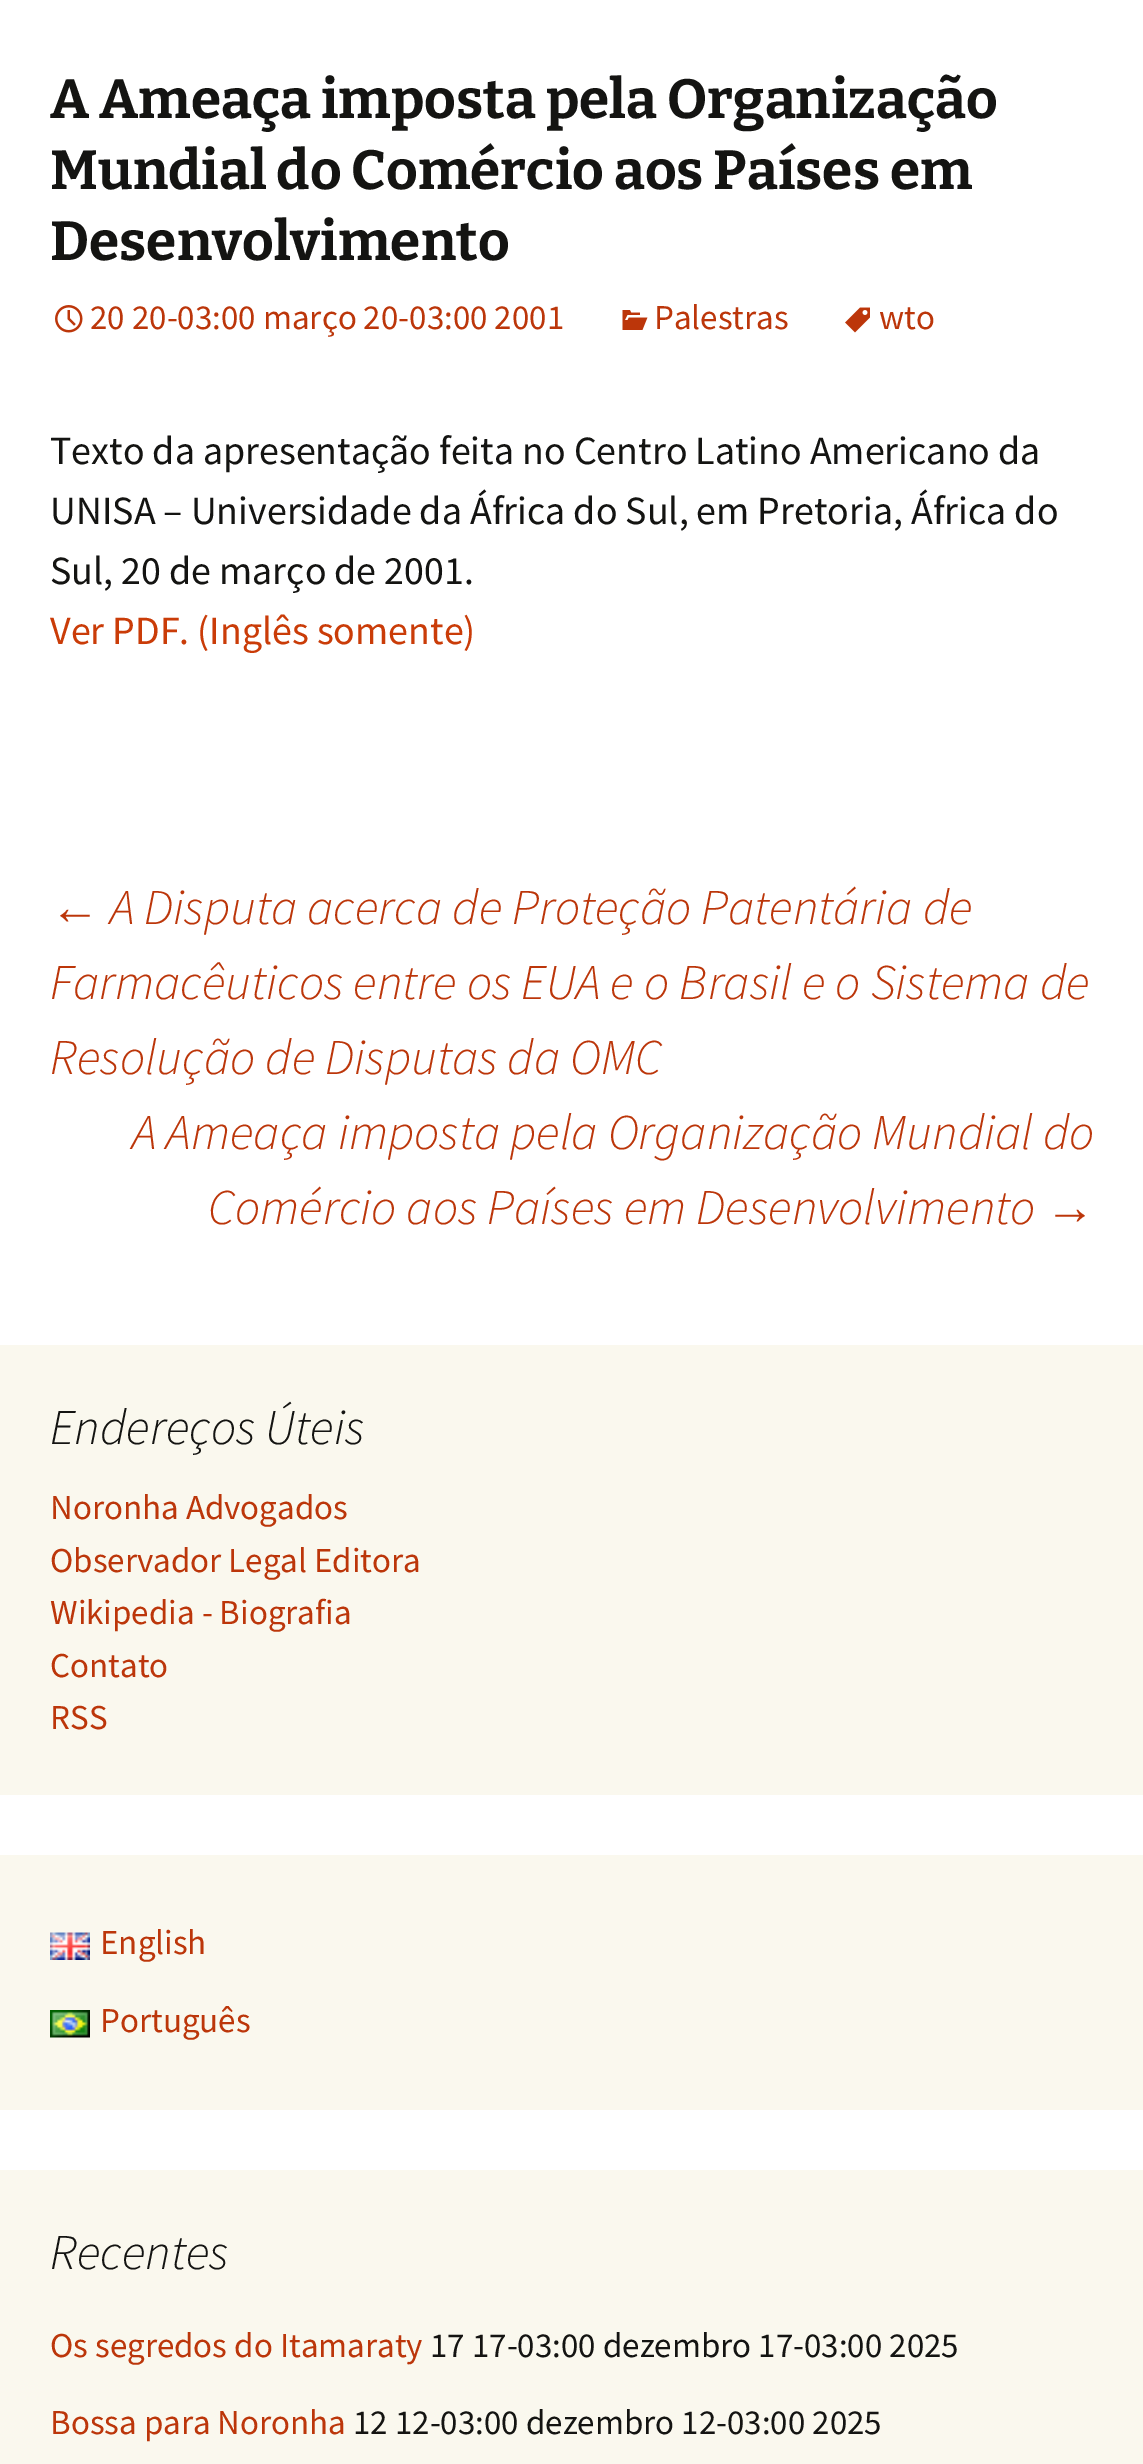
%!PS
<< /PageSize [1143 2464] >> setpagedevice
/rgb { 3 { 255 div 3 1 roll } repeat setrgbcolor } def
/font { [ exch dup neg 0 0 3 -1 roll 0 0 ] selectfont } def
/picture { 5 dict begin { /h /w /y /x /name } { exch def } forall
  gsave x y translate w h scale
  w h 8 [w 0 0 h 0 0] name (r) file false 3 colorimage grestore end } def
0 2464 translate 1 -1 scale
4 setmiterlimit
255 255 255 rgb
0 0 1143 2464 rectfill
(img/1.rgb) 55 305 28 28 picture
(img/2.rgb) 622 310 26 20 picture
(img/3.rgb) 845 307 25 26 picture
250 248 238 rgb
0 1345 1143 450 rectfill
0 1855 1143 255 rectfill
(img/4.rgb) 50 1932 40 28 picture
(img/5.rgb) 50 2010 40 28 picture
0 2170 1143 294 rectfill
/Bitter-Thin 55 font
20 20 18 rgb
[
  [(A Ameaça imposta pela Organização) 50 118]
  [(Mundial do Comércio aos Países em) 50 189]
  [(Desenvolvimento) 50 260]
] { aload pop moveto show } forall
/SourceSansPro-Regular 35 font
188 54 10 rgb
[
  [(20 20-03:00 março 20-03:00 2001) 90 329]
  [(Palestras) 654 329]
  [(wto) 879 329]
] { aload pop moveto show } forall
/SourceSansPro-Regular 40 font
20 20 18 rgb
[
  [(Texto da apresentação feita no Centro Latino Americano da) 50 464]
  [(UNISA – Universidade da África do Sul, em Pretoria, África do) 50 524]
  [(Sul, 20 de março de 2001.) 50 584]
] { aload pop moveto show } forall
202 60 8 rgb
50 644 moveto (Ver PDF. \(Inglês somente\)) show
/LiberationSans-Italic 50 font
188 54 10 rgb
50 924 moveto (←) show
/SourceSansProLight-LightItalic 50 font
[
  [(A Disputa acerca de Proteção Patentária de) 110 924]
  [(Farmacêuticos entre os EUA e o Brasil e o Sistema de) 50 999]
  [(Resolução de Disputas da OMC) 50 1074]
  [(A Ameaça imposta pela Organização Mundial do) 132 1149]
  [(Comércio aos Países em Desenvolvimento) 208 1224]
] { aload pop moveto show } forall
/LiberationSans-Italic 50 font
1045 1224 moveto (→) show
/SourceSansProLight-LightItalic 50 font
20 20 18 rgb
50 1444 moveto (Endereços Úteis) show
/SourceSansPro-Regular 35 font
188 54 10 rgb
[
  [(Noronha Advogados) 50 1519]
  [(Observador Legal Editora) 50 1572]
  [(Wikipedia - Biografia) 50 1624]
  [(Contato) 50 1677]
  [(RSS) 50 1729]
  [(English) 100 1954]
  [(Português) 100 2032]
] { aload pop moveto show } forall
/SourceSansProLight-LightItalic 50 font
20 20 18 rgb
50 2269 moveto (Recentes) show
/SourceSansPro-Regular 35 font
188 54 10 rgb
50 2357 moveto (Os segredos do Itamaraty) show
20 20 18 rgb
430 2357 moveto (17 17-03:00 dezembro 17-03:00 2025) show
188 54 10 rgb
50 2434 moveto (Bossa para Noronha) show
20 20 18 rgb
353 2434 moveto (12 12-03:00 dezembro 12-03:00 2025) show
showpage
